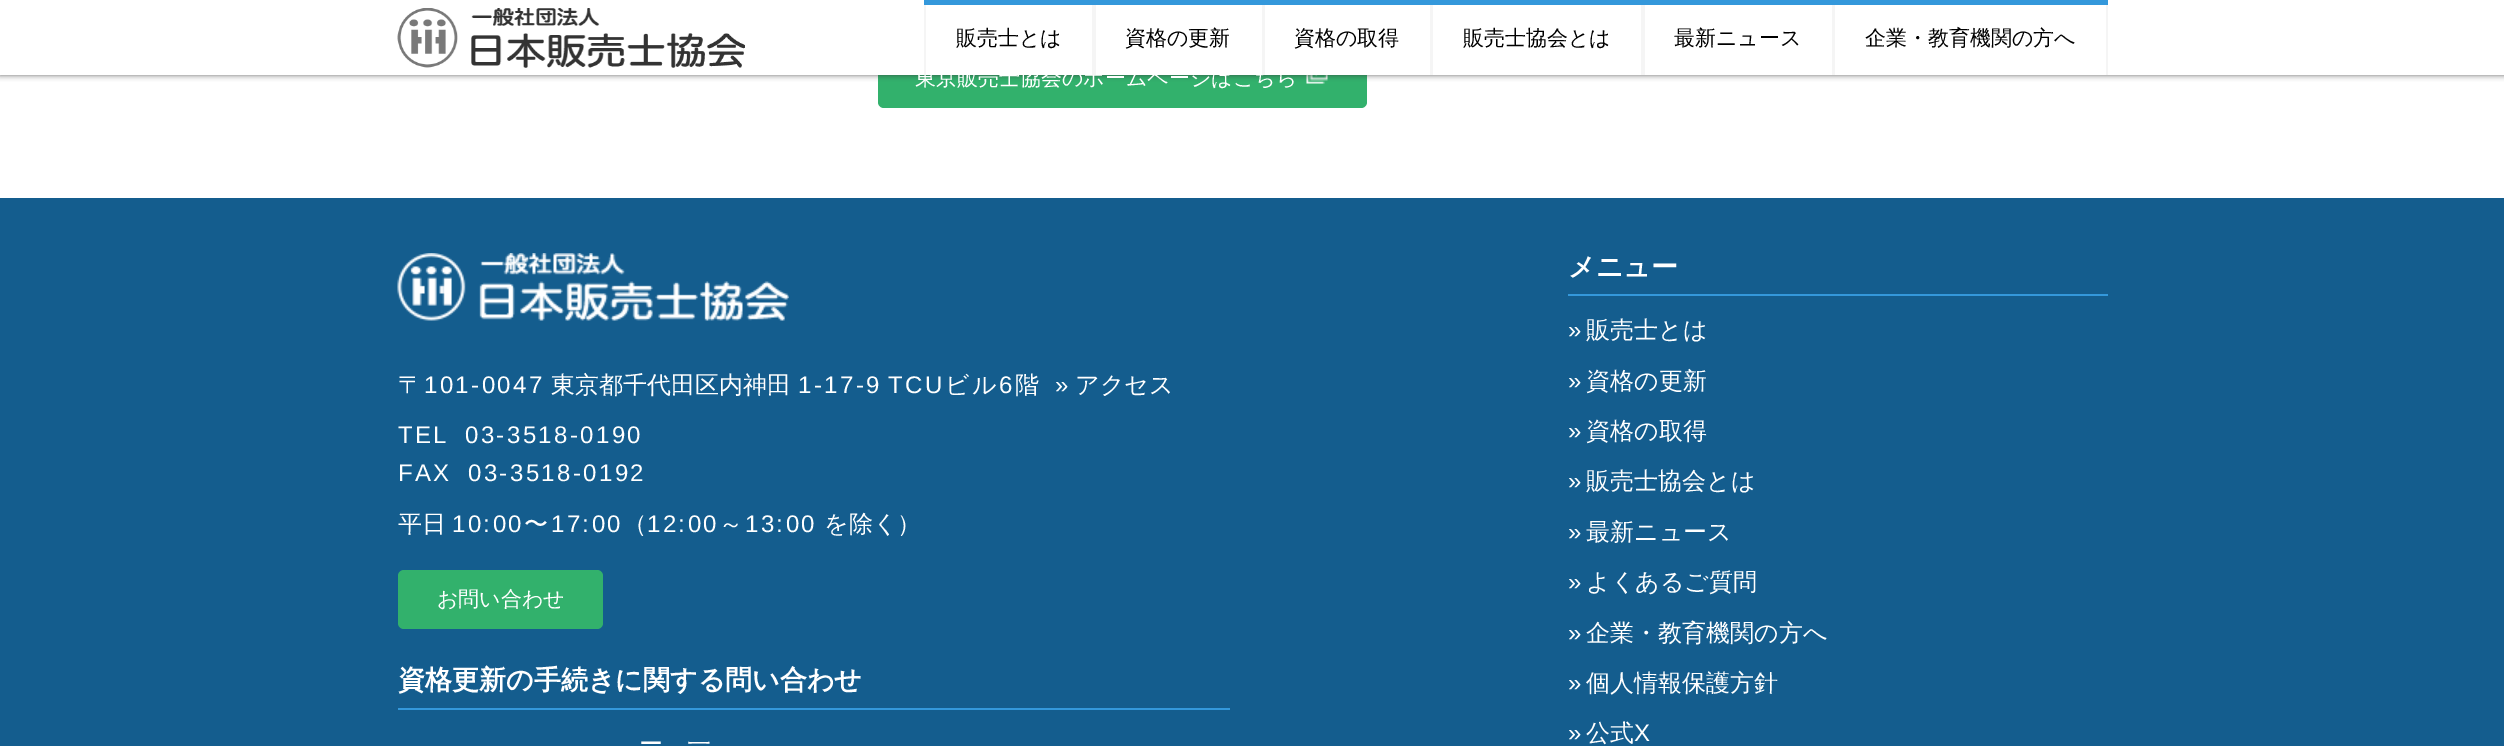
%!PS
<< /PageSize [2504 746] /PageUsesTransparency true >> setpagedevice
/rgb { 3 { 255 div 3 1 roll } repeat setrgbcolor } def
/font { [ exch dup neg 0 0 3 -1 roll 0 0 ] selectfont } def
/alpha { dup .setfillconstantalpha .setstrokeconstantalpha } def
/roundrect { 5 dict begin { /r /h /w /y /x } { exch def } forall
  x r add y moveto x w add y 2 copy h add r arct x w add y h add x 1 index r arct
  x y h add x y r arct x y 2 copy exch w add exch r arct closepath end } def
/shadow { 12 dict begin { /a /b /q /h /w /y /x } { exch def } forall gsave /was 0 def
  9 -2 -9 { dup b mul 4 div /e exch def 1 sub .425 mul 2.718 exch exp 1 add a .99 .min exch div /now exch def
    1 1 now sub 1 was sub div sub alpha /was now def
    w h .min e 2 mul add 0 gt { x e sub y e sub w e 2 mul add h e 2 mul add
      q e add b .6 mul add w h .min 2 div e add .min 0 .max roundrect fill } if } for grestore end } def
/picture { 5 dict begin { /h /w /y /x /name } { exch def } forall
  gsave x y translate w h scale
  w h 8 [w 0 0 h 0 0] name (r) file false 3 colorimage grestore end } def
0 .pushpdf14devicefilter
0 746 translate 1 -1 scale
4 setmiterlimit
255 255 255 rgb
0 0 2504 746 rectfill
50 177 108 rgb
878 47 489 61 6 roundrect fill
(img/2.rgb) 1306 75 22 9 picture
50 50 50 rgb
0 0 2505 75 0 3 0.75 shadow
255 255 255 rgb
0 0 2504 75 rectfill
(img/1.rgb) 397 8 348 60 picture
[
  [1430 0 3 75 245 245 245]
  [1641 0 4 75 245 245 245]
  [1832 0 3 75 245 245 245]
  [2106 0 2 75 245 245 245]
  [0 198 2504 548 20 93 142]
] { aload pop rgb rectfill } forall
(img/3.rgb) 397 253 392 68 picture
50 177 108 rgb
398 570 205 59 6 roundrect fill
52 152 219 rgb
398 708 832 2 rectfill
1568 294 540 2 rectfill
/WenQuanYiZenHei-Medium 21 font
0 0 0 rgb
[
  [(販売士とは) 956 45]
  [(資格の更新) 1125 45]
  [(資格の取得) 1294 45]
  [(販売士協会とは) 1463 45]
  [(最新ニュース) 1674 45]
  [(企業・教育機関の方へ) 1865 45]
] { aload pop moveto show } forall
255 255 255 rgb
915 85 moveto (東京販売士協会のホームページはこちら) show
[
  [1262 0 3 75 245 245 245]
  [1092 0 4 75 245 245 245]
  [924 0 2 75 245 245 245]
  [924 0 1184 5 52 152 219]
] { aload pop rgb rectfill } forall
/WenQuanYiZenHei-Medium 24 font
255 255 255 rgb
398 393 moveto 2.4 0 (〒) ashow
/LiberationSans-Regular 24 font
424 393 moveto 2.4 0 (101-0047) ashow
/WenQuanYiZenHei-Medium 24 font
551 393 moveto (東京都千代田区内神田) show
/LiberationSans-Regular 24 font
798 393 moveto 2.4 0 (1-17-9) ashow
888 393 moveto 2.4 0 (TCU) ashow
/WenQuanYiZenHei-Medium 24 font
945 393 moveto 2.4 0 (ビル) ashow
/LiberationSans-Regular 24 font
999 393 moveto 2.4 0 (6) ashow
/WenQuanYiZenHei-Medium 24 font
1015 393 moveto 2.4 0 (階) ashow
/LiberationSans-Regular 24 font
1055 393 moveto (») show
/WenQuanYiZenHei-Medium 24 font
1075 393 moveto (アクセス) show
/LiberationSans-Regular 24 font
398 443 moveto 2.4 0 (TEL) ashow
465 443 moveto 2.4 0 (03-3518-0190) ashow
398 481 moveto 2.4 0 (FAX) ashow
468 481 moveto 2.4 0 (03-3518-0192) ashow
/WenQuanYiZenHei-Medium 24 font
398 532 moveto (平日) show
/LiberationSans-Regular 24 font
452 532 moveto 2.4 0 (10:00) ashow
/WenQuanYiZenHei-Medium 24 font
524 532 moveto 2.4 0 (〜) ashow
/LiberationSans-Regular 24 font
551 532 moveto 2.4 0 (17:00) ashow
/WenQuanYiZenHei-Medium 24 font
623 532 moveto (（) show
/LiberationSans-Regular 24 font
647 532 moveto 2.4 0 (12:00) ashow
/WenQuanYiZenHei-Medium 24 font
719 532 moveto 2.4 0 (～) ashow
/LiberationSans-Regular 24 font
745 532 moveto 2.4 0 (13:00) ashow
/WenQuanYiZenHei-Medium 24 font
824 532 moveto (を除く）) show
/WenQuanYiZenHei-Medium 21 font
437 606 moveto (お問い合わせ) show
/WenQuanYiZenHei-Bold 27 font
398 689 moveto (資格更新の手続きに関する問い合わせ) show
/WenQuanYiZenHei-Medium 24 font
639 752 moveto (ー) show
687 752 moveto (一) show
/WenQuanYiZenHei-Bold 27 font
1568 276 moveto (メニュー) show
/LiberationSans-Regular 24 font
1568 338 moveto (») show
/WenQuanYiZenHei-Medium 24 font
1586 338 moveto (販売士とは) show
/LiberationSans-Regular 24 font
1568 389 moveto (») show
/WenQuanYiZenHei-Medium 24 font
1586 389 moveto (資格の更新) show
/LiberationSans-Regular 24 font
1568 439 moveto (») show
/WenQuanYiZenHei-Medium 24 font
1586 439 moveto (資格の取得) show
/LiberationSans-Regular 24 font
1568 489 moveto (») show
/WenQuanYiZenHei-Medium 24 font
1586 489 moveto (販売士協会とは) show
/LiberationSans-Regular 24 font
1568 540 moveto (») show
/WenQuanYiZenHei-Medium 24 font
1586 540 moveto (最新ニュース) show
/LiberationSans-Regular 24 font
1568 590 moveto (») show
/WenQuanYiZenHei-Medium 24 font
1586 590 moveto (よくあるご質問) show
/LiberationSans-Regular 24 font
1568 641 moveto (») show
/WenQuanYiZenHei-Medium 24 font
1586 641 moveto (企業・教育機関の方へ) show
/LiberationSans-Regular 24 font
1568 691 moveto (») show
/WenQuanYiZenHei-Medium 24 font
1586 691 moveto (個人情報保護方針) show
/LiberationSans-Regular 24 font
1568 741 moveto (») show
/WenQuanYiZenHei-Medium 24 font
1586 741 moveto (公式) show
/LiberationSans-Regular 24 font
1634 741 moveto (X) show
.poppdf14devicefilter showpage
